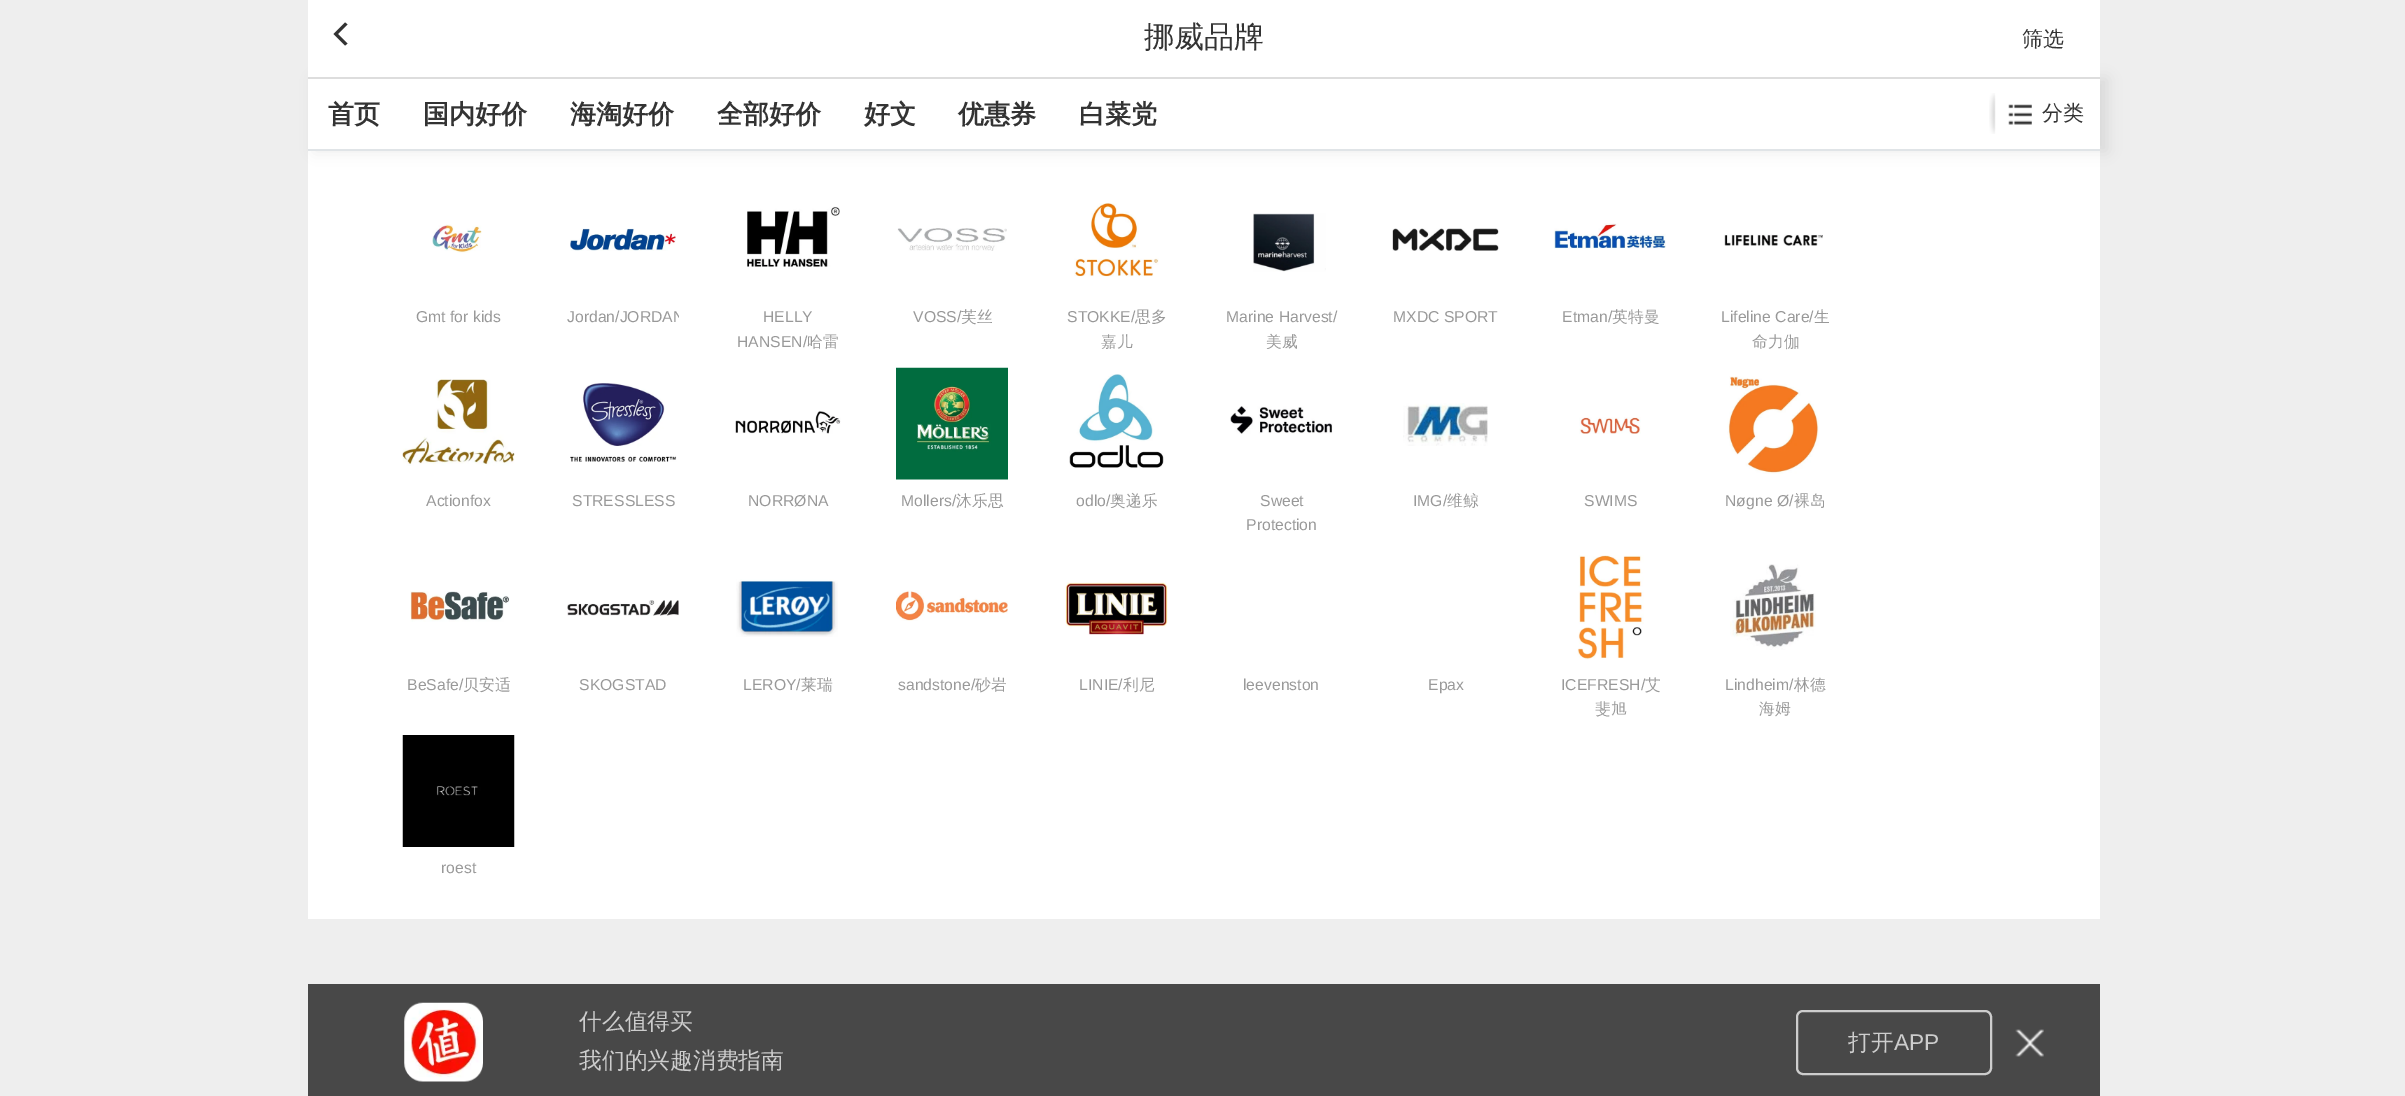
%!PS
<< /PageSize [2405 1096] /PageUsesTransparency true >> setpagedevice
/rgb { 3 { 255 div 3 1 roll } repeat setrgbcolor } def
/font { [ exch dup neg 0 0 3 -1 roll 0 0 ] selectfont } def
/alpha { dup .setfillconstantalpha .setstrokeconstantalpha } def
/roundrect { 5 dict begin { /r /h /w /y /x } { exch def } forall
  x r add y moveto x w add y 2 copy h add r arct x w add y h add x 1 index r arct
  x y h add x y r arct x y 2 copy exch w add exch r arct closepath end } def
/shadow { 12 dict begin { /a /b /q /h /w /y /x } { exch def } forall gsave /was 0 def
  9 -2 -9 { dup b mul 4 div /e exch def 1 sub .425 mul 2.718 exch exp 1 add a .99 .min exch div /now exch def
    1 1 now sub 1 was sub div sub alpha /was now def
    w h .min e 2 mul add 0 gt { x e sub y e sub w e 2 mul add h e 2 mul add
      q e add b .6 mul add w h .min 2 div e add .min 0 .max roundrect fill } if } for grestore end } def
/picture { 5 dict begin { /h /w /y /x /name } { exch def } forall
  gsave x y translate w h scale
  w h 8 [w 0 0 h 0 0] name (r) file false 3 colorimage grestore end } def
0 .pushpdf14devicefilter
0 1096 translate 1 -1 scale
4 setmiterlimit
238 238 238 rgb
0 0 2405 1096 rectfill
255 255 255 rgb
308 151 1792 768 rectfill
0 0 0 rgb
315 79 1792 72 0 7 0.08 shadow
255 255 255 rgb
308 0 1792 77 rectfill
221 221 221 rgb
308 77 1792 2 rectfill
51 51 51 rgb
345 22.5 moveto 347.5 24.5 lineto 338 34 lineto 347.5 43.5 lineto 345 45.5 lineto 333.5 34 lineto closepath fill
255 255 255 rgb
308 79 1792 70 rectfill
224 228 231 rgb
308 149 1792 2 rectfill
(img/1.rgb) 1989 93 7 41 picture
(img/2.rgb) 2008 104 24 21 picture
(img/3.rgb) 432 224 50 29 picture
(img/4.rgb) 570 228 106 23 picture
(img/5.rgb) 747 206 93 61 picture
(img/6.rgb) 897 228 110 23 picture
(img/7.rgb) 1074 203 85 74 picture
(img/8.rgb) 1253 213 73 59 picture
(img/9.rgb) 1392 228 107 23 picture
(img/10.rgb) 1554 223 112 26 picture
(img/11.rgb) 1724 234 99 12 picture
(img/12.rgb) 402 379 113 87 picture
(img/13.rgb) 570 382 107 80 picture
(img/14.rgb) 735 410 106 24 picture
(img/15.rgb) 896 367 112 113 picture
(img/16.rgb) 1069 374 95 94 picture
(img/17.rgb) 1230 406 103 28 picture
(img/18.rgb) 1403 403 85 43 picture
(img/19.rgb) 1579 417 62 17 picture
(img/20.rgb) 1727 376 92 98 picture
(img/21.rgb) 410 591 100 31 picture
(img/22.rgb) 567 600 112 16 picture
(img/23.rgb) 736 579 102 58 picture
(img/24.rgb) 896 590 112 31 picture
(img/25.rgb) 1065 582 103 53 picture
(img/26.rgb) 1577 555 67 105 picture
(img/27.rgb) 1730 564 86 86 picture
(img/28.rgb) 402 735 113 112 picture
72 72 72 rgb
308 984 1792 112 rectfill
(img/29.rgb) 404 1002 79 80 picture
205 205 205 rgb
2 setlinewidth
1797 1011 194 63 6 roundrect stroke
(img/30.rgb) 2015 1029 29 28 picture
/WenQuanYiZenHei-Medium 30 font
51 51 51 rgb
1144 47 moveto (挪威品牌) show
/WenQuanYiZenHei-Medium 21 font
2022 46 moveto (筛选) show
/WenQuanYiZenHei-Bold 26 font
[
  [(首页) 328 123]
  [(国内好价) 423 123]
  [(海淘好价) 570 123]
  [(全部好价) 717 123]
  [(好文) 864 123]
  [(优惠券) 958 123]
  [(白菜党) 1079 123]
] { aload pop moveto show } forall
/WenQuanYiZenHei-Medium 21 font
2042 120 moveto (分类) show
/LiberationSans-Regular 15.75 font
153 153 153 rgb
416 322 moveto (Gmt for kids) show
gsave
567 296 112 54 rectclip
567 322 moveto (Jordan/JORDAN) show
grestore
763 322 moveto (HELLY) show
737 347 moveto (HANSEN/) show
/WenQuanYiZenHei-Medium 15.75 font
807 347 moveto (哈雷) show
/LiberationSans-Regular 15.75 font
913 322 moveto (VOSS/) show
/WenQuanYiZenHei-Medium 15.75 font
961 322 moveto (芙丝) show
/LiberationSans-Regular 15.75 font
1067 322 moveto (STOKKE/) show
/WenQuanYiZenHei-Medium 15.75 font
1135 322 moveto (思多) show
1101 347 moveto (嘉儿) show
/LiberationSans-Regular 15.75 font
1226 322 moveto (Marine Harvest/) show
/WenQuanYiZenHei-Medium 15.75 font
1266 347 moveto (美威) show
/LiberationSans-Regular 15.75 font
1393 322 moveto (MXDC SPORT) show
1562 322 moveto (Etman/) show
/WenQuanYiZenHei-Medium 15.75 font
1612 322 moveto (英特曼) show
/LiberationSans-Regular 15.75 font
1721 322 moveto (Lifeline Care/) show
/WenQuanYiZenHei-Medium 15.75 font
1814 322 moveto (生) show
1752 347 moveto (命力伽) show
/LiberationSans-Regular 15.75 font
[
  [(Actionfox) 426 506]
  [(STRESSLESS) 572 506]
  [(NORRØNA) 748 506]
  [(Mollers/) 901 506]
] { aload pop moveto show } forall
/WenQuanYiZenHei-Medium 15.75 font
956 506 moveto (沐乐思) show
/LiberationSans-Regular 15.75 font
1076 506 moveto (odlo/) show
/WenQuanYiZenHei-Medium 15.75 font
1110 506 moveto (奥递乐) show
/LiberationSans-Regular 15.75 font
[
  [(Sweet) 1260 506]
  [(Protection) 1246 530]
  [(IMG/) 1413 506]
] { aload pop moveto show } forall
/WenQuanYiZenHei-Medium 15.75 font
1447 506 moveto (维鲸) show
/LiberationSans-Regular 15.75 font
1584 506 moveto (SWIMS) show
1725 506 moveto (Nøgne Ø/) show
/WenQuanYiZenHei-Medium 15.75 font
1794 506 moveto (裸岛) show
/LiberationSans-Regular 15.75 font
407 690 moveto (BeSafe/) show
/WenQuanYiZenHei-Medium 15.75 font
463 690 moveto (贝安适) show
/LiberationSans-Regular 15.75 font
579 690 moveto (SKOGSTAD) show
743 690 moveto (LEROY/) show
/WenQuanYiZenHei-Medium 15.75 font
801 690 moveto (莱瑞) show
/LiberationSans-Regular 15.75 font
898 690 moveto (sandstone/) show
/WenQuanYiZenHei-Medium 15.75 font
975 690 moveto (砂岩) show
/LiberationSans-Regular 15.75 font
1079 690 moveto (LINIE/) show
/WenQuanYiZenHei-Medium 15.75 font
1123 690 moveto (利尼) show
/LiberationSans-Regular 15.75 font
[
  [(leevenston) 1243 690]
  [(Epax) 1428 690]
  [(ICEFRESH/) 1561 690]
] { aload pop moveto show } forall
/WenQuanYiZenHei-Medium 15.75 font
1645 690 moveto (艾) show
1595 714 moveto (斐旭) show
/LiberationSans-Regular 15.75 font
1725 690 moveto (Lindheim/) show
/WenQuanYiZenHei-Medium 15.75 font
1794 690 moveto (林德) show
1759 714 moveto (海姆) show
/LiberationSans-Regular 15.75 font
441 873 moveto (roest) show
/WenQuanYiZenHei-Medium 22.75 font
205 205 205 rgb
[
  [(什么值得买) 579 1029]
  [(我们的兴趣消费指南) 579 1068]
  [(打开) 1848 1050]
] { aload pop moveto show } forall
/LiberationSans-Regular 22.75 font
1894 1050 moveto (APP) show
.poppdf14devicefilter showpage
